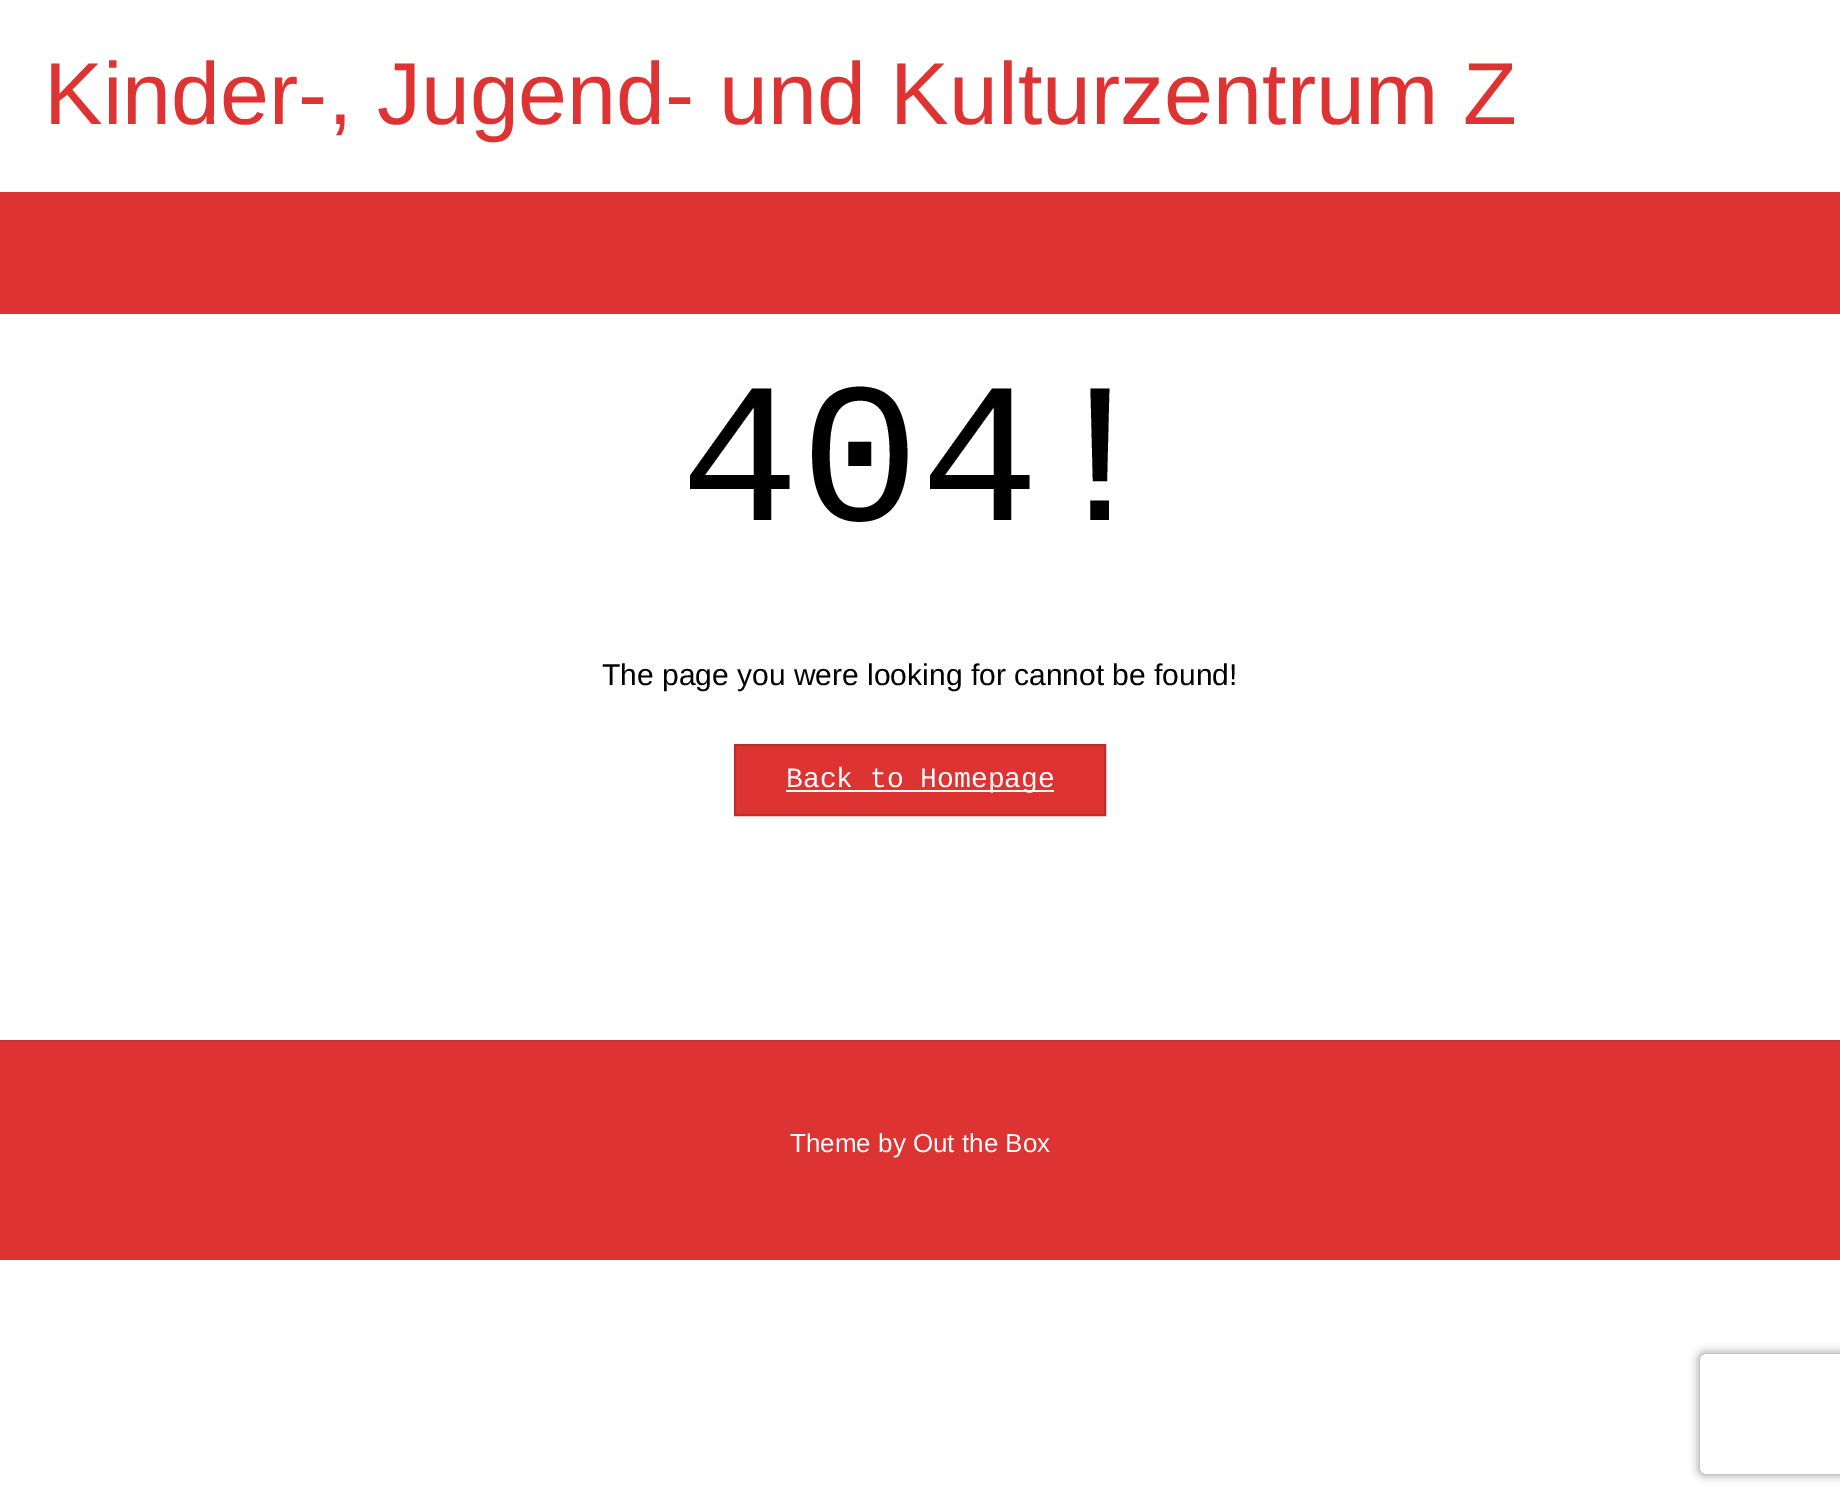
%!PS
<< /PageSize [1840 1501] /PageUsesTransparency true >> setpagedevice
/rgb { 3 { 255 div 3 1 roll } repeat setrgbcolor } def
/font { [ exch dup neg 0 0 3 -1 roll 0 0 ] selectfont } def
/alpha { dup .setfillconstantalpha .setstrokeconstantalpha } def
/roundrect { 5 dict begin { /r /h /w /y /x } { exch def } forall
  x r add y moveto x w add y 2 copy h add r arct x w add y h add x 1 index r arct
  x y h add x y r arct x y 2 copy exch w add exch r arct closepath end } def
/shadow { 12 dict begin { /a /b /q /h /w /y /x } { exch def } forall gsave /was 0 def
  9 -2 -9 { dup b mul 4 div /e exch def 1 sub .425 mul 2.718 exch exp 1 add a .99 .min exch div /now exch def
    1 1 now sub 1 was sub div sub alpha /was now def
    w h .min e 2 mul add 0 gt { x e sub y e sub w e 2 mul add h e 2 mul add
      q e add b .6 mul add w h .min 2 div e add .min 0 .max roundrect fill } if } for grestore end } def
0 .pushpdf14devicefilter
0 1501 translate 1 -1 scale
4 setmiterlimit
255 255 255 rgb
0 0 1840 1501 rectfill
221 51 51 rgb
0 192 1840 122 rectfill
735 745 moveto 1105 745 lineto 1105 815 lineto 735 815 lineto closepath gsave fill grestore
190 44 44 rgb
2 setlinewidth
stroke
[
  [786 790 268 2 255 255 255]
  [0 1042 1840 218 221 51 51]
  [0 1040 1840 2 203 47 47]
] { aload pop rgb rectfill } forall
gsave
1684 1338 moveto 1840 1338 lineto 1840 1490 lineto 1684 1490 lineto closepath 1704 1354 moveto 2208 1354 lineto 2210 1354 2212 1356 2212 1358 curveto 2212 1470 lineto 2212 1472 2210 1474 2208 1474 curveto 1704 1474 lineto 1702 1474 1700 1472 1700 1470 curveto 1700 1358 lineto 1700 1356 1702 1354 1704 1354 curveto closepath eoclip newpath
128 128 128 rgb
1700 1354 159 120 4 5 1 shadow
grestore
/LiberationSans-Regular 88 font
221 51 51 rgb
44 124 moveto (Kinder-, Jugend- und Kulturzentrum Z) show
/LiberationMono-Regular 200 font
0 0 0 rgb
680 520 moveto (404!) show
/LiberationSans-Regular 30 font
602 685 moveto (The page you were looking for cannot be found!) show
/LiberationMono-Regular 28 font
255 255 255 rgb
786 787 moveto (Back to Homepage) show
/LiberationSans-Regular 26 font
790 1152 moveto (Theme by Out the Box) show
.poppdf14devicefilter showpage
